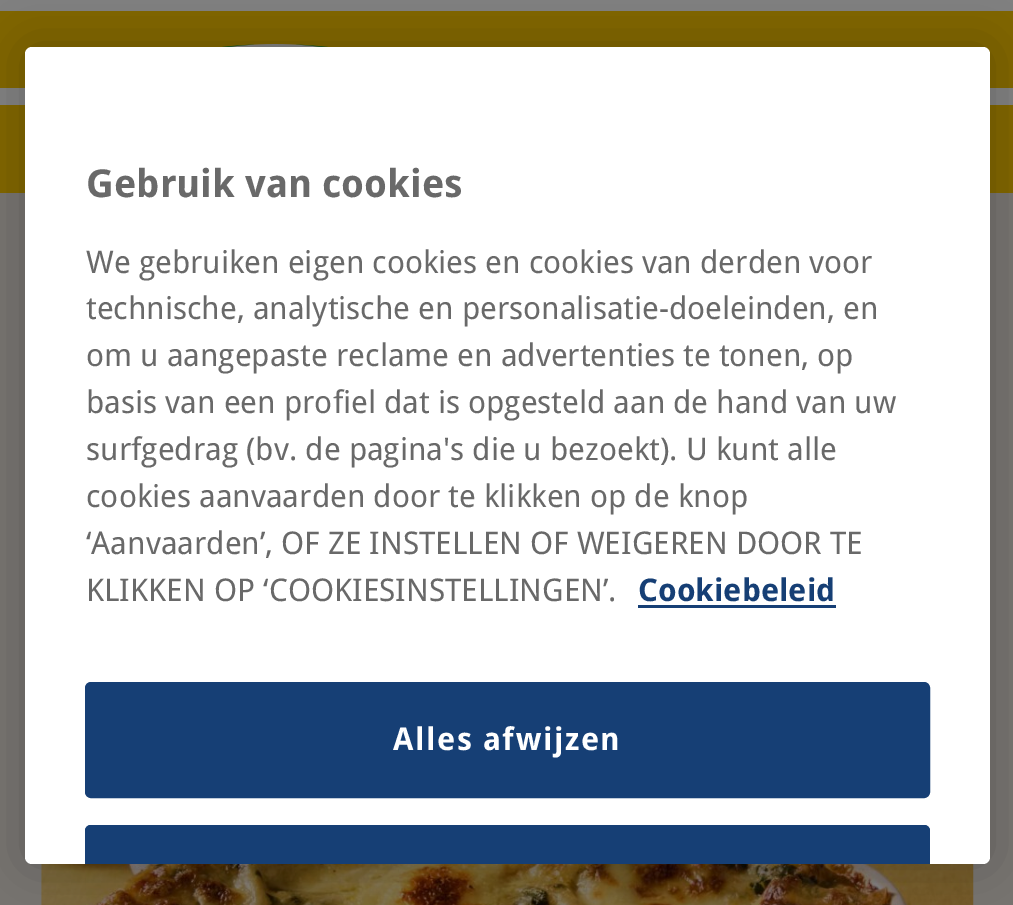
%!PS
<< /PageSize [1013 905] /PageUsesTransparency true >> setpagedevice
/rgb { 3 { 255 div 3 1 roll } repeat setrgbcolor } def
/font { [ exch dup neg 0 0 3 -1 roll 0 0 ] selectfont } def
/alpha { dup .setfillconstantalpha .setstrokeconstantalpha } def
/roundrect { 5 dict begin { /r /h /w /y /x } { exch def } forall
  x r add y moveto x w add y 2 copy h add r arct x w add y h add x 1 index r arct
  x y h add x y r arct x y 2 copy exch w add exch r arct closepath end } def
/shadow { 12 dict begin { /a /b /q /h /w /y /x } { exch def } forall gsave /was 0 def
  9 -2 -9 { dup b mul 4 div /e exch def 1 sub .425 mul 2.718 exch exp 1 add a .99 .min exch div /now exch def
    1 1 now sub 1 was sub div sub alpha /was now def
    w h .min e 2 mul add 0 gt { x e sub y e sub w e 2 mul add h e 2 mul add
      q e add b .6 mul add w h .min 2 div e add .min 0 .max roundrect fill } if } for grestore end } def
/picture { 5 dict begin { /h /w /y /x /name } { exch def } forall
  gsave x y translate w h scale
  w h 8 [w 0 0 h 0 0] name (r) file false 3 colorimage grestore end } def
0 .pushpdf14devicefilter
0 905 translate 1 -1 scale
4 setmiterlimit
119 116 112 rgb
0 0 1013 905 rectfill
[
  [0 11 1013 182 128 102 0]
  [0 0 1013 11 128 128 128]
  [0 88 1013 17 128 128 128]
] { aload pop rgb rectfill } forall
gsave
41 17 468 198 rectclip
128 102 0 rgb
509 82 moveto 509 155 404 214 275 214 curveto 146 214 41 155 41 82 curveto 41 9 146 17 275 17 curveto 404 17 509 9 509 82 curveto closepath fill
grestore
(img/1.rgb) 222 44 106 3 picture
(img/2.rgb) 41 864 933 41 picture
gsave
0 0 moveto 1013 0 lineto 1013 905 lineto 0 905 lineto closepath 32 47 moveto 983 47 lineto 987 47 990 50 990 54 curveto 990 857 lineto 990 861 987 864 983 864 curveto 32 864 lineto 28 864 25 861 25 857 curveto 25 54 lineto 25 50 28 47 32 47 curveto closepath eoclip newpath
0 0 0 rgb
25 47 965 817 7 25 0.2 shadow
grestore
255 255 255 rgb
25 47 965 817 7 roundrect fill
22 63 117 rgb
638 605 198 3 rectfill
86.5 683.5 842 113 4.5 roundrect gsave fill grestore
3 setlinewidth
stroke
91 825 moveto 924 825 lineto 927.5 825 930 827.5 930 831 curveto 930 864 lineto 85 864 lineto 85 831 lineto 85 827.5 87.5 825 91 825 curveto closepath fill
91 825 moveto 88 825 85 828 85 831 curveto 85 864 lineto 88 864 lineto 88 831 lineto 88 829 89 828 91 828 curveto 924 828 lineto 926 828 927 829 927 831 curveto 927 864 lineto 930 864 lineto 930 831 lineto 930 828 927 825 924 825 curveto closepath fill
/DroidSans-Bold 38.5 font
105 105 105 rgb
86 197 moveto (Gebruik van cookies) show
/DroidSans-Regular 31.3 font
[
  [(We gebruiken eigen cookies en cookies van derden voor) 86 273]
  [(technische, analytische en personalisatie-doeleinden, en) 86 319]
  [(om u aangepaste reclame en advertenties te tonen, op) 86 366]
  [(basis van een profiel dat is opgesteld aan de hand van uw) 86 413]
  [(surfgedrag \(bv. de pagina's die u bezoekt\). U kunt alle) 86 460]
  [(cookies aanvaarden door te klikken op de knop) 86 507]
  [(‘Aanvaarden’, OF ZE INSTELLEN OF WEIGEREN DOOR TE) 86 554]
  [(KLIKKEN OP ‘COOKIESINSTELLINGEN’.) 86 601]
] { aload pop moveto show } forall
/DroidSans-Bold 31.3 font
22 63 117 rgb
638 601 moveto (Cookiebeleid) show
255 255 255 rgb
393 750 moveto 1.5 0 (Alles afwijzen) ashow
.poppdf14devicefilter showpage
